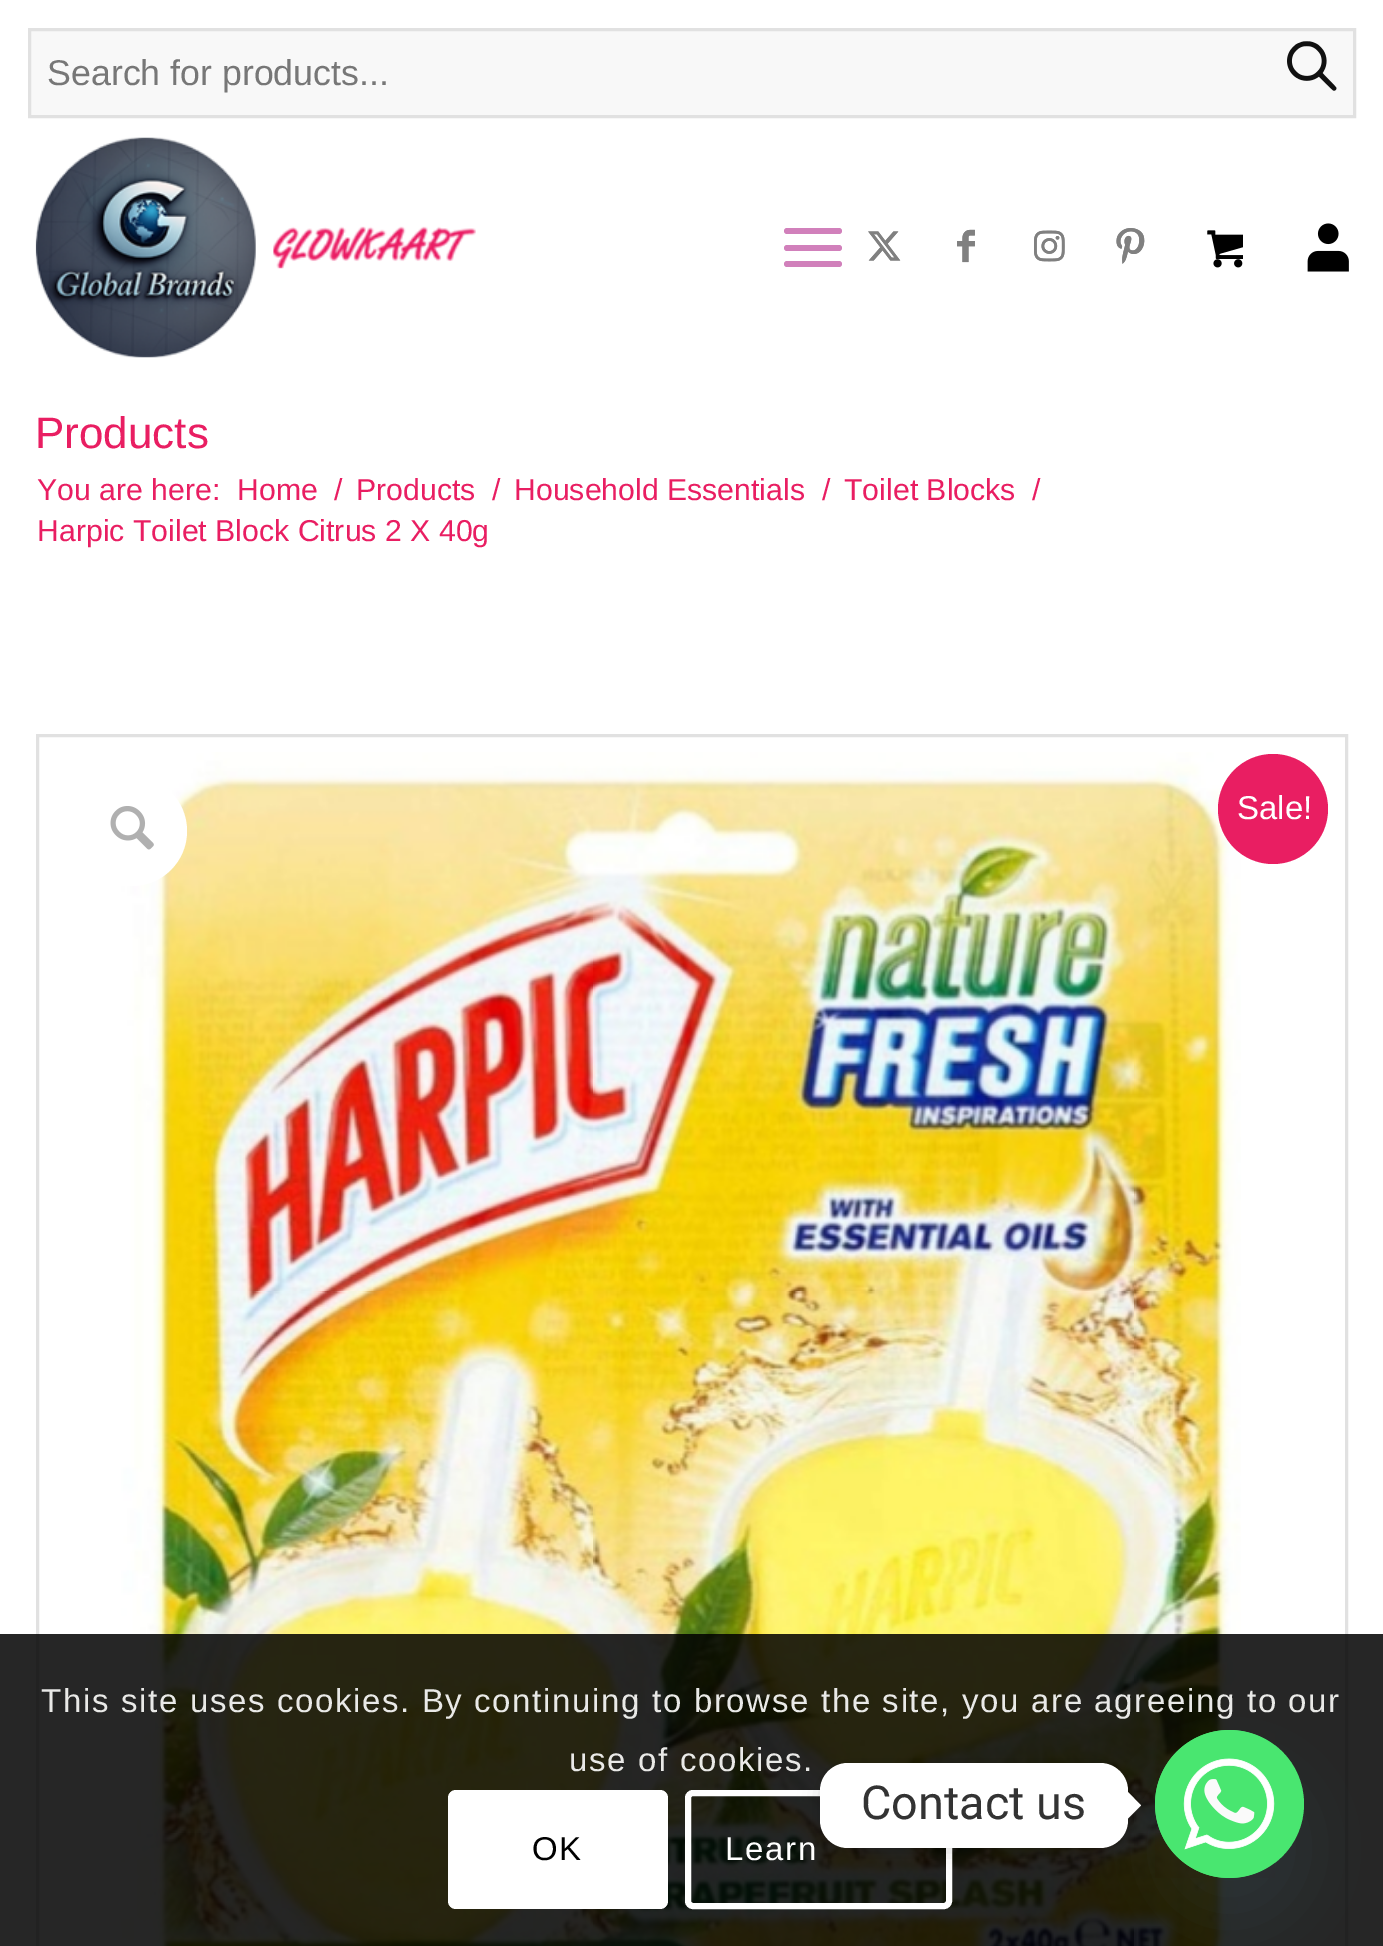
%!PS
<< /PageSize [1383 1946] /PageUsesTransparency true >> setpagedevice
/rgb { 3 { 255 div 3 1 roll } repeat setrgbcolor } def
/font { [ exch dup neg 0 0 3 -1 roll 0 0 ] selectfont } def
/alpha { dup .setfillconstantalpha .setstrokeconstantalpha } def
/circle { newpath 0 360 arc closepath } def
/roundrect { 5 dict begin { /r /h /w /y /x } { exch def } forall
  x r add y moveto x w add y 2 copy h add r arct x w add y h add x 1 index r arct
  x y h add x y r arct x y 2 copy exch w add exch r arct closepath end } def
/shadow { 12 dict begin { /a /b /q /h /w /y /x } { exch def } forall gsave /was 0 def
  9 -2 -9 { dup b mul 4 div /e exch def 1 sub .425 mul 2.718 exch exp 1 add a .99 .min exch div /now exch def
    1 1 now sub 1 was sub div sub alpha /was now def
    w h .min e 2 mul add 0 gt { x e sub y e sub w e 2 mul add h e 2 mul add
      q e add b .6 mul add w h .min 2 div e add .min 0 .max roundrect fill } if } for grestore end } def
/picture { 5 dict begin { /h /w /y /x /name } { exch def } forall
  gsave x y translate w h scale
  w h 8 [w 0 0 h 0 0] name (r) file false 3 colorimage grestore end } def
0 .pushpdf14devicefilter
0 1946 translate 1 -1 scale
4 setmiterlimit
255 255 255 rgb
0 0 1383 1946 rectfill
248 248 248 rgb
29.5 29.5 moveto 1354.5 29.5 lineto 1354.5 116.5 lineto 29.5 116.5 lineto closepath gsave fill grestore
225 225 225 rgb
3 setlinewidth
stroke
(img/1.rgb) 1287 41 50 50 picture
(img/2.rgb) 1307 223 42 49 picture
(img/3.rgb) 35 137 441 221 picture
209 128 187 rgb
784 245 58 6 3 roundrect fill
784 228 58 6 3 roundrect fill
784 261 58 6 3 roundrect fill
(img/4.rgb) 868 231 33 30 picture
(img/5.rgb) 957 229 18 34 picture
(img/6.rgb) 1034 230 31 32 picture
(img/7.rgb) 1116 228 29 36 picture
(img/8.rgb) 868 231 33 30 picture
(img/9.rgb) 957 229 18 34 picture
(img/10.rgb) 1034 230 31 32 picture
(img/11.rgb) 1116 228 29 36 picture
(img/12.rgb) 1207 230 36 38 picture
225 225 225 rgb
37.5 735.5 1309 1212 rectstroke
(img/13.rgb) 121 752 1120 1194 picture
255 255 255 rgb
132 831 55 circle fill
(img/14.rgb) 110 806 44 44 picture
233 30 98 rgb
1273 809 55 circle fill
0.85 alpha
0 0 0 rgb
0 1634 1383 312 rectfill
1 alpha
255 255 255 rgb
448 1790 220 119 8 roundrect fill
6 setlinewidth
688 1793 261 113 5 roundrect stroke
73 104 126 rgb
1155 1774 149 148 74 33 0.16 shadow
73 230 112 rgb
1155 1730 149 148 74 roundrect fill
(img/15.rgb) 1155 1730 120 148 picture
gsave
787 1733 moveto 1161 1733 lineto 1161 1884 lineto 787 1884 lineto closepath 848 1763 moveto 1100 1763 lineto 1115.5 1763 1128 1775.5 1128 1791 curveto 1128 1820 lineto 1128 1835.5 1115.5 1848 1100 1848 curveto 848 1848 lineto 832.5 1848 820 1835.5 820 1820 curveto 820 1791 lineto 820 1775.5 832.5 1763 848 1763 curveto closepath eoclip newpath
0 0 0 rgb
820 1766 308 85 28 10.5 0.15 shadow
grestore
255 255 255 rgb
820 1763 308 85 28 roundrect fill
1127.5 1819 moveto 1127.5 1791.5 lineto 1141 1805.5 lineto closepath fill
/LiberationSans-Regular 35.75 font
119 119 119 rgb
47 85 moveto (Search for products...) show
/LiberationSans-Regular 44 font
233 30 98 rgb
35 448 moveto (Products) show
/LiberationSans-Regular 30.25 font
[
  [(You are here:) 37 500]
  [(Home) 237 500]
  [(/) 334 500]
  [(Products) 356 500]
  [(/) 492 500]
  [(Household Essentials) 514 500]
  [(/) 822 500]
  [(Toilet Blocks) 844 500]
  [(/) 1032 500]
  [(Harpic Toilet Block Citrus 2 X 40g) 37 541]
] { aload pop moveto show } forall
/LiberationSans-Regular 33 font
255 255 255 rgb
1237 819 moveto (Sale!) show
233 233 231 rgb
41 1712 moveto 1.65 0 (This site uses cookies. By continuing to browse the site, you are agreeing to our) ashow
569 1771 moveto 1.65 0 (use of cookies.) ashow
0 0 0 rgb
532 1860 moveto 1.65 0 (OK) ashow
255 255 255 rgb
725 1860 moveto 1.65 0 (Learn) ashow
/Roboto-Regular 46.75 font
51 51 51 rgb
861 1819 moveto (Contact us) show
.poppdf14devicefilter showpage
